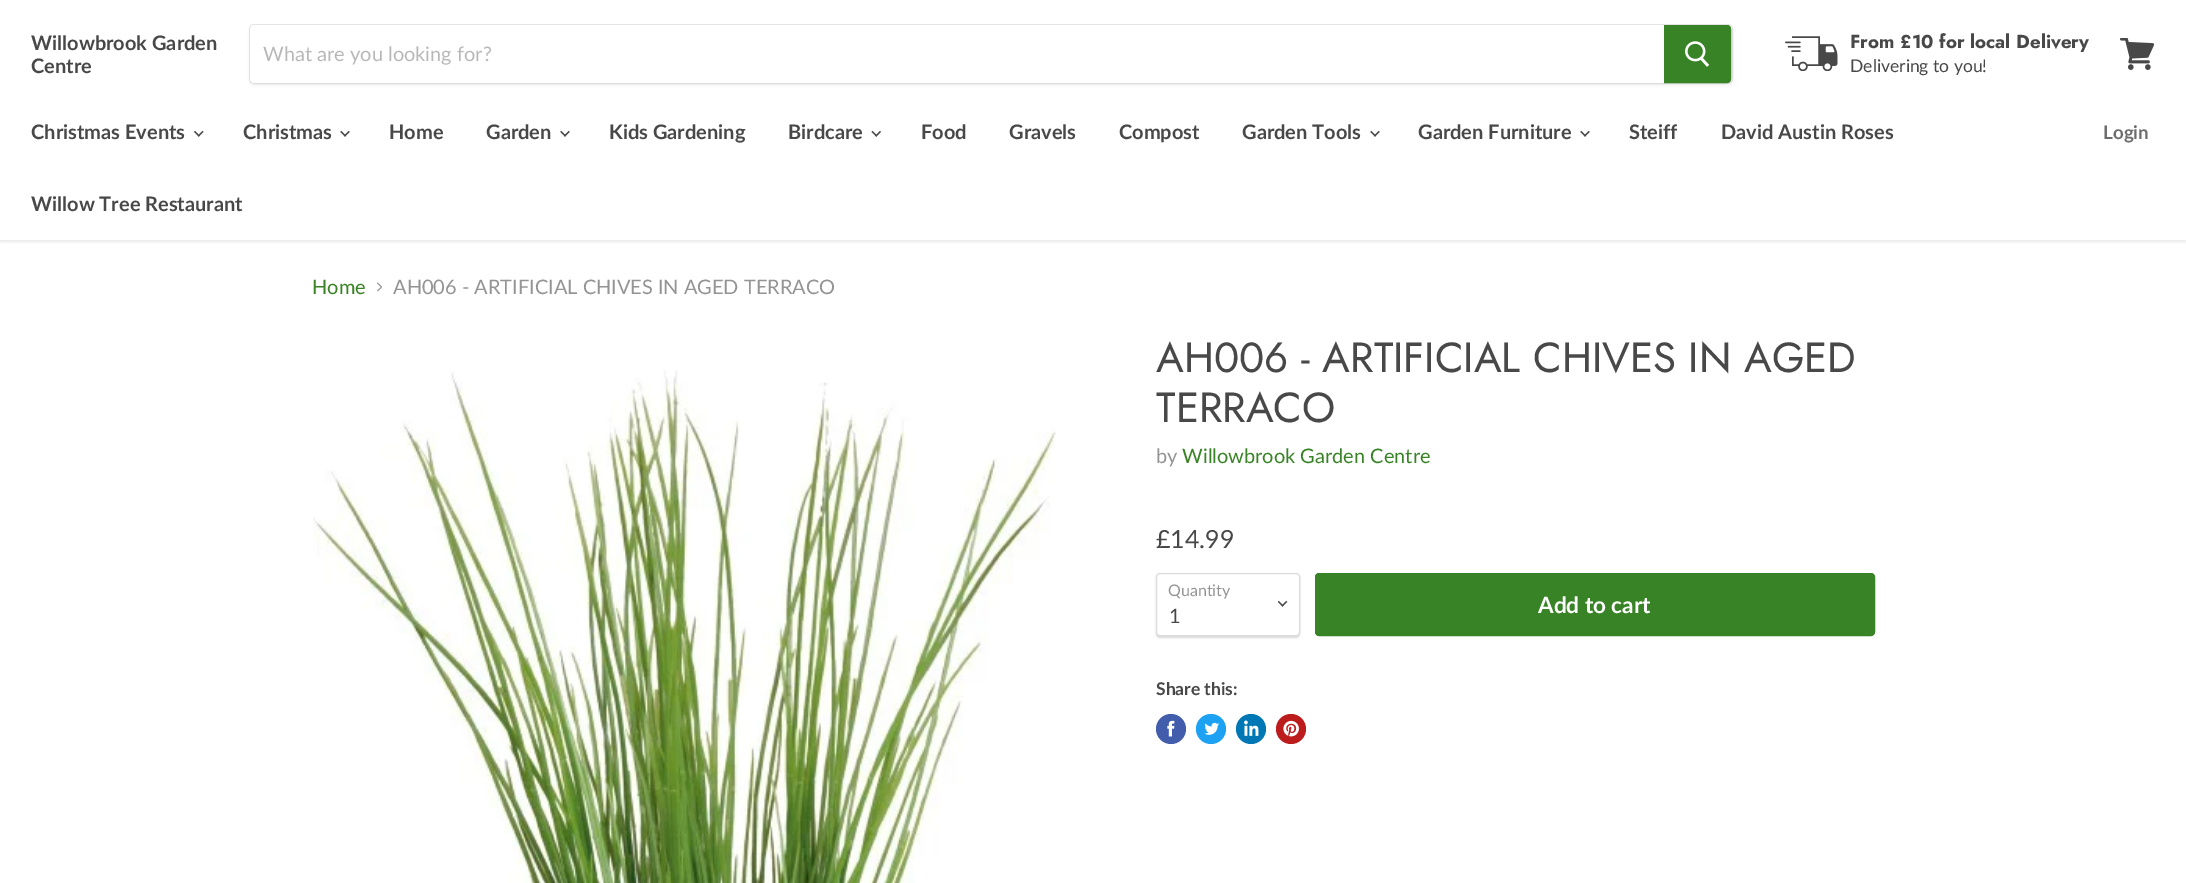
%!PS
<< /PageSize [2186 883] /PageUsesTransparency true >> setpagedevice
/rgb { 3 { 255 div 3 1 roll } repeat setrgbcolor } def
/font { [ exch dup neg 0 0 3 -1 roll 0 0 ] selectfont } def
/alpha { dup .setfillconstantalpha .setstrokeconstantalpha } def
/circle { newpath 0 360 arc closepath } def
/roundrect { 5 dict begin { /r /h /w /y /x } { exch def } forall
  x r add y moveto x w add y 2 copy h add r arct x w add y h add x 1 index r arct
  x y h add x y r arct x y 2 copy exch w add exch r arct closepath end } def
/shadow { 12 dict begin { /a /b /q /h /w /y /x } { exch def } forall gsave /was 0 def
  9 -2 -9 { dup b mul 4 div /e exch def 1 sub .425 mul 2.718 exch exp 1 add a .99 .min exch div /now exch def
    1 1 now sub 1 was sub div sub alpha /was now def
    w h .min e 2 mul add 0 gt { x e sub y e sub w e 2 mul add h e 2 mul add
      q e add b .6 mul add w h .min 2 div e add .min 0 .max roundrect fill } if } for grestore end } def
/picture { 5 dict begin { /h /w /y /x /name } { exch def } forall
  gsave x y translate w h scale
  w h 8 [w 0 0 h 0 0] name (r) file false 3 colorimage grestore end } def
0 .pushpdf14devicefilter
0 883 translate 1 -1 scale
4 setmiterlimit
255 255 255 rgb
0 0 2186 883 rectfill
gsave
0 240 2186 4 rectclip
128 128 128 rgb
0 1 2186 240 0 2.5 0.25 shadow
grestore
128 128 128 rgb
249 26 1484 60 5 2 0.11 shadow
0.2 alpha
249.5 24.5 1483 59 4.5 roundrect stroke
1 alpha
255 255 255 rgb
254 25 moveto 1664 25 lineto 1664 83 lineto 254 83 lineto 252 83 250 81 250 79 curveto 250 29 lineto 250 27 252 25 254 25 curveto closepath fill
56 131 37 rgb
1664.5 25.5 moveto 1727 25.5 lineto 1729 25.5 1730.5 27 1730.5 29 curveto 1730.5 79 lineto 1730.5 81 1729 82.5 1727 82.5 curveto 1664.5 82.5 lineto closepath gsave fill grestore
stroke
(img/1.rgb) 1685 41 25 26 picture
(img/2.rgb) 1785 36 53 35 picture
(img/3.rgb) 2120 38 35 32 picture
(img/4.rgb) 194 130 10 7 picture
(img/5.rgb) 340 130 10 7 picture
(img/5.rgb) 560 130 10 7 picture
(img/6.rgb) 871 130 10 7 picture
(img/5.rgb) 1370 130 10 7 picture
(img/5.rgb) 1580 130 10 7 picture
(img/7.rgb) 377 282 5 10 picture
(img/8.rgb) 313 370 743 513 picture
0 0 0 rgb
1156 574 144 64 4 1 0.15 shadow
255 255 255 rgb
1156.5 573.5 143 62 3.5 roundrect gsave fill grestore
221 221 221 rgb
stroke
(img/9.rgb) 1278 600 10 7 picture
56 131 37 rgb
1315.5 573.5 559 62 3.5 roundrect gsave fill grestore
stroke
66 93 171 rgb
1171 729 15 circle fill
(img/10.rgb) 1167 720 8 17 picture
29 161 242 rgb
1211 729 15 circle fill
(img/11.rgb) 1204 722 15 13 picture
0 119 181 rgb
1251 729 15 circle fill
(img/12.rgb) 1244 720 15 16 picture
189 28 28 rgb
1291 729 15 circle fill
(img/13.rgb) 1283 720 16 17 picture
/Lato-Bold 20 font
72 72 72 rgb
31 50 moveto (Willowbrook Garden) show
31 73 moveto (Centre) show
/Lato-Regular 20 font
184 184 184 rgb
263 61 moveto (What are you looking for?) show
/Jost-Bold 18.75 font
72 72 72 rgb
1850 48 moveto (From £10 for local Delivery) show
/Lato-Regular 17.5 font
1850 72 moveto (Delivering to you!) show
/Lato-Bold 20 font
[
  [(Christmas Events) 31 139]
  [(Christmas) 243 139]
  [(Home) 389 139]
  [(Garden) 486 139]
  [(Kids Gardening) 609 139]
  [(Birdcare) 788 139]
  [(Food) 921 139]
  [(Gravels) 1009 139]
  [(Compost) 1119 139]
  [(Garden Tools) 1242 139]
  [(Garden Furniture) 1418 139]
  [(Steiff) 1629 139]
  [(David Austin Roses) 1721 139]
  [(Willow Tree Restaurant) 31 211]
] { aload pop moveto show } forall
/Lato-Bold 18.75 font
109 109 109 rgb
2103 139 moveto (Login) show
/Lato-Regular 20 font
56 131 37 rgb
312 294 moveto (Home) show
148 148 148 rgb
393 294 moveto (AH006 - ARTIFICIAL CHIVES IN AGED TERRACO) show
/Jost-Regular 42 font
72 72 72 rgb
1156 372 moveto (AH006 - ARTIFICIAL CHIVES IN AGED) show
1156 422 moveto (TERRACO) show
/Lato-Regular 20 font
148 148 148 rgb
1156 463 moveto (by) show
56 131 37 rgb
1182 463 moveto (Willowbrook Garden Centre) show
/Lato-Regular 25 font
72 72 72 rgb
1156 548 moveto (£14.99) show
/Lato-Regular 16 font
148 148 148 rgb
1168 596 moveto (Quantity) show
/Lato-Regular 20 font
72 72 72 rgb
1169 623 moveto (1) show
/Lato-Bold 22.5 font
255 255 255 rgb
1538 613 moveto (Add to cart) show
/Lato-Bold 17.5 font
72 72 72 rgb
1156 695 moveto (Share this:) show
.poppdf14devicefilter showpage
